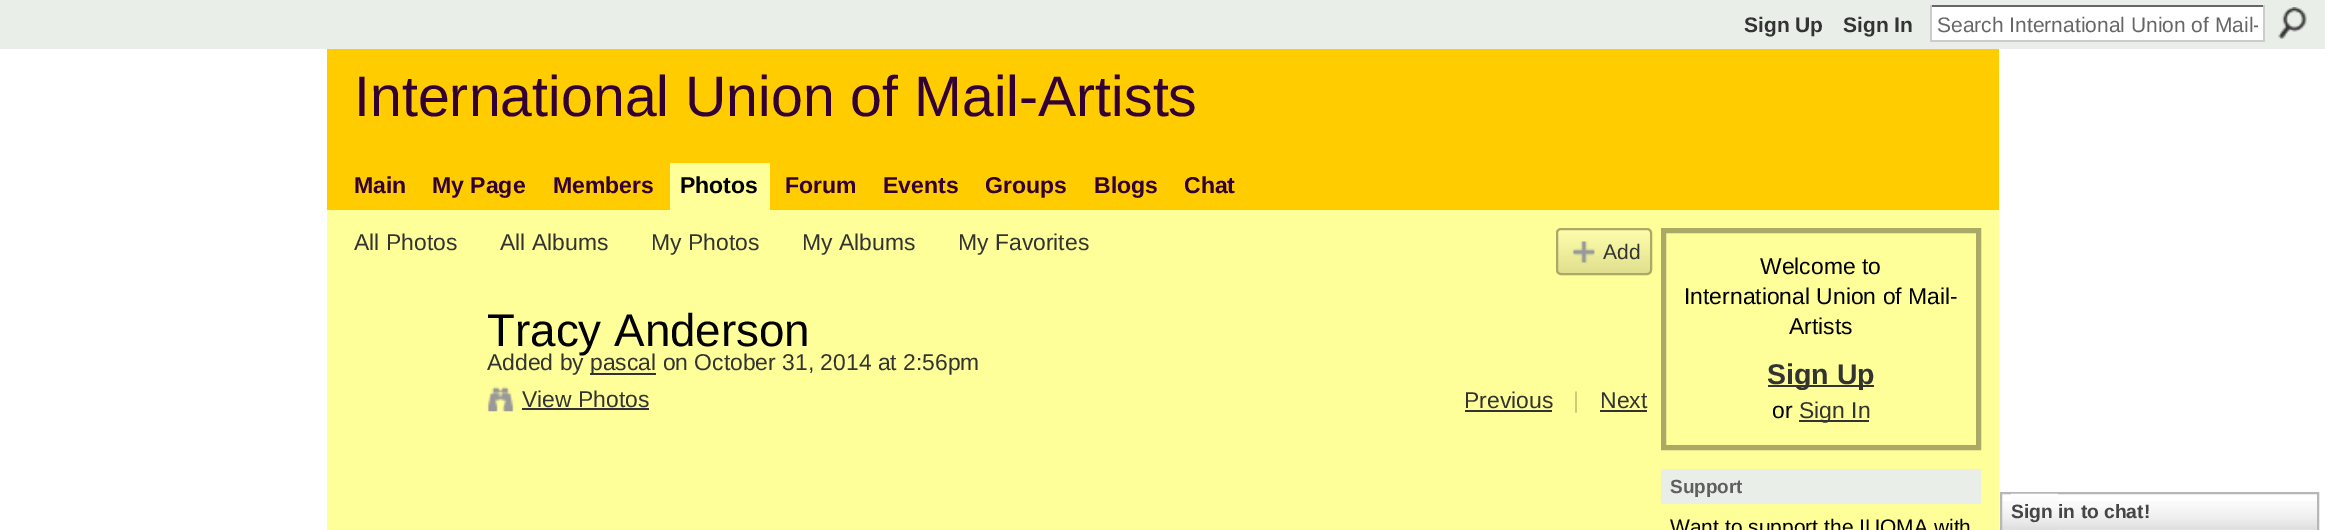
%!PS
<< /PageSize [2325 530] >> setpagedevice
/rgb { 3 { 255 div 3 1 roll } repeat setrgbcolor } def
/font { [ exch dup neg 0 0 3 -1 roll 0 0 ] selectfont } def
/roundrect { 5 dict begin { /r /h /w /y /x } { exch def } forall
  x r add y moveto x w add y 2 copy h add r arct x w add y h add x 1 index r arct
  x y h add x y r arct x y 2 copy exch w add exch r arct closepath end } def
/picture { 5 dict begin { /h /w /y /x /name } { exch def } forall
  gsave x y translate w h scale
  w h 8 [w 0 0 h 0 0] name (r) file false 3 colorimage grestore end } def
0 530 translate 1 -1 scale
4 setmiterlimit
255 255 255 rgb
0 0 2325 530 rectfill
[
  [0 0 2325 49 233 238 232]
  [1932 7 331 33 255 255 255]
  [1930 5 335 2 102 102 102]
  [2263 5 2 37 204 204 204]
  [1930 40 335 2 204 204 204]
  [1930 5 2 37 204 204 204]
] { aload pop rgb rectfill } forall
(img/1.rgb) 2278 7 29 32 picture
[
  [327 49 1672 161 255 204 0]
  [670 163 100 47 255 255 153]
  [327 210 1672 320 255 255 153]
] { aload pop rgb rectfill } forall
(img/2.rgb) 1556 229 96 46 picture
170 170 102 rgb
2 setlinewidth
1557 229 94 45 4 roundrect stroke
(img/3.rgb) 1572 241 23 22 picture
51 51 51 rgb
590 373 66 2 rectfill
(img/4.rgb) 487 386 27 26 picture
[
  [522 408 127 2 51 51 51]
  [1465 410 87 2 51 51 51]
  [1600 410 47 2 51 51 51]
] { aload pop rgb rectfill } forall
170 170 102 rgb
5 setlinewidth
1663.5 230.5 315 217 rectstroke
[
  [1768 385 106 2 51 51 51]
  [1799 420 70 2 51 51 51]
  [1661 469 320 35 233 238 232]
] { aload pop rgb rectfill } forall
(img/5.rgb) 2002 501 315 29 picture
183 183 183 rgb
2 setlinewidth
2001 493 317 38 rectstroke
(img/6.rgb) 2011 493 47 37 picture
/LiberationSans-Bold 21 font
51 51 51 rgb
1744 32 moveto (Sign Up) show
1843 32 moveto (Sign In) show
gsave
1937 12 321 25 rectclip
/LiberationSans-Regular 21 font
102 102 102 rgb
1937 32 moveto (Search International Union of Mail-) show
grestore
/LiberationSans-Regular 57.25 font
51 0 51 rgb
354 116 moveto (International Union of Mail-Artists) show
/LiberationSans-Bold 23 font
[
  [(Main) 354 193]
  [(My Page) 432 193]
  [(Members) 553 193]
] { aload pop moveto show } forall
0 0 0 rgb
680 193 moveto (Photos) show
51 0 51 rgb
[
  [(Forum) 785 193]
  [(Events) 883 193]
  [(Groups) 985 193]
  [(Blogs) 1094 193]
  [(Chat) 1184 193]
] { aload pop moveto show } forall
/LiberationSans-Regular 22.9 font
51 51 51 rgb
[
  [(All Photos) 354 250]
  [(All Albums) 500 250]
  [(My Photos) 651 250]
  [(My Albums) 802 250]
  [(My Favorites) 958 250]
] { aload pop moveto show } forall
/LiberationSans-Regular 21 font
1603 259 moveto (Add) show
/LiberationSans-Regular 45.75 font
0 0 0 rgb
487 346 moveto (Tracy Anderson) show
/LiberationSans-Regular 22.9 font
51 51 51 rgb
[
  [(Added by) 487 370]
  [(pascal on October 31, 2014 at 2:56pm) 590 370]
  [(View Photos) 522 407]
  [(Previous) 1464 408]
] { aload pop moveto show } forall
204 204 123 rgb
1573 408 moveto (|) show
51 51 51 rgb
1600 408 moveto (Next) show
0 0 0 rgb
[
  [(Welcome to) 1760 274]
  [(International Union of Mail-) 1684 304]
  [(Artists) 1789 334]
] { aload pop moveto show } forall
/LiberationSans-Bold 28.5 font
51 51 51 rgb
1767 384 moveto (Sign Up) show
/LiberationSans-Regular 22.9 font
0 0 0 rgb
1772 418 moveto (or) show
51 51 51 rgb
1799 418 moveto (Sign In) show
/LiberationSans-Bold 19 font
94 94 94 rgb
1670 493 moveto (Support) show
/LiberationSans-Regular 21 font
0 0 0 rgb
1670 534 moveto (Want to support the IUOMA with) show
/LiberationSans-Bold 19.25 font
69 69 69 rgb
2011 518 moveto (Sign in to chat!) show
showpage
